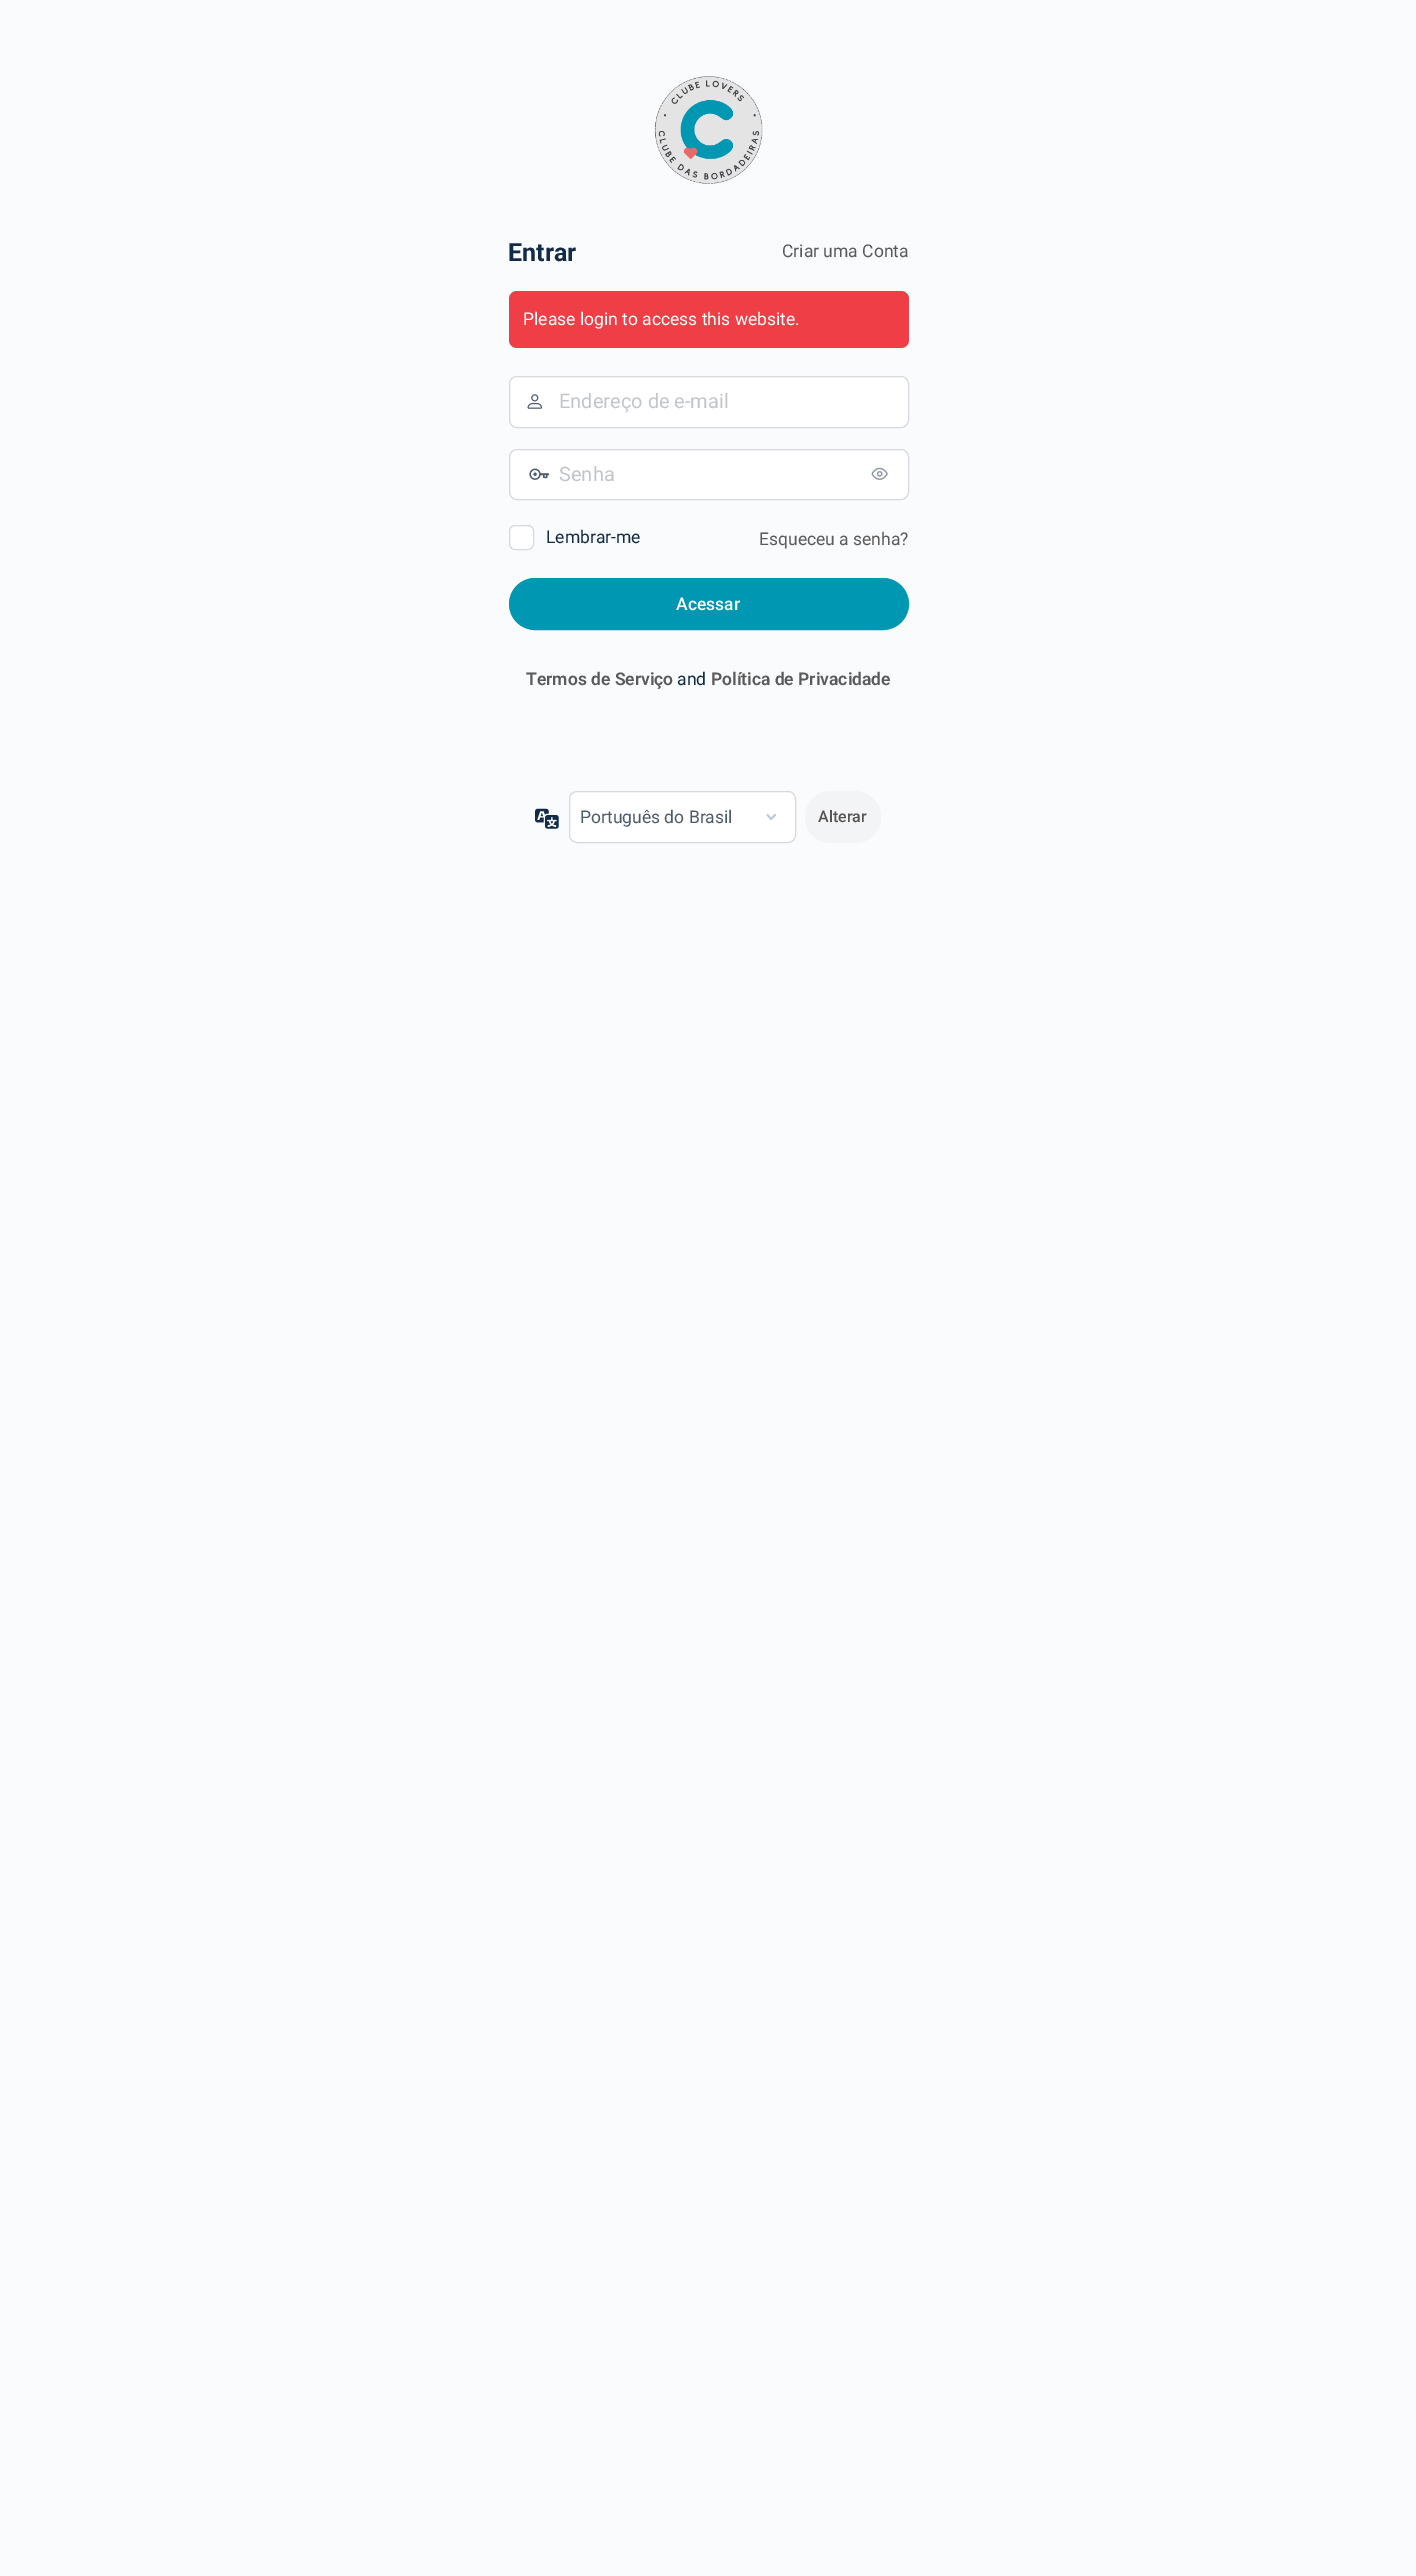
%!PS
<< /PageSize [1416 2576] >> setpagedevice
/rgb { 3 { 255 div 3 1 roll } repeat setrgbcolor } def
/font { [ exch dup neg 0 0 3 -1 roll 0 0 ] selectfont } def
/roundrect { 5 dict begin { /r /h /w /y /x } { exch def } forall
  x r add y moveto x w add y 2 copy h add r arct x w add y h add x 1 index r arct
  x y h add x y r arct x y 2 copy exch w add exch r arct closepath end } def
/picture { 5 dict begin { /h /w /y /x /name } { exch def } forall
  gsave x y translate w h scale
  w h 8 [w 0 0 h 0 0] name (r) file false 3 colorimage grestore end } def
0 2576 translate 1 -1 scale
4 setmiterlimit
250 251 253 rgb
0 0 1416 2576 rectfill
(img/1.rgb) 654 76 109 108 picture
239 62 70 rgb
509 291 400 57 8 roundrect fill
255 255 255 rgb
509.5 376.5 399 51 7.5 roundrect gsave fill grestore
214 217 221 rgb
stroke
(img/2.rgb) 527 394 16 15 picture
255 255 255 rgb
509.5 449.5 399 50 7.5 roundrect gsave fill grestore
214 217 221 rgb
stroke
(img/3.rgb) 529 468 21 12 picture
(img/4.rgb) 871 467 17 13 picture
255 255 255 rgb
509.5 525.5 24 24 5.5 roundrect gsave fill grestore
214 217 221 rgb
stroke
0 151 178 rgb
509.5 578.5 399 51 25.5 roundrect gsave fill grestore
stroke
(img/5.rgb) 535 808 24 21 picture
255 255 255 rgb
569 791 227 52 8 roundrect fill
196 202 209 rgb
1.9 setlinewidth
1 setlinecap
1 setlinejoin
775 815 moveto 771 819 lineto 767.5 815 lineto stroke
214 217 221 rgb
1 setlinewidth
0 setlinecap
0 setlinejoin
569.5 791.5 226 51 7.5 roundrect stroke
242 244 245 rgb
805 791 76 52 26 roundrect fill
/Roboto-Bold 25 font
18 43 70 rgb
508 261 moveto (Entrar) show
/Roboto-Regular 17.5 font
90 90 90 rgb
782 257 moveto (Criar uma Conta) show
255 255 255 rgb
523 325 moveto (Please login to access this website.) show
/Roboto-Regular 20 font
195 198 201 rgb
559 408 moveto (Endereço de e-mail) show
559 481 moveto (Senha) show
/Roboto-Regular 17.5 font
18 43 70 rgb
546 543 moveto (Lembrar-me) show
90 90 90 rgb
759 545 moveto (Esqueceu a senha?) show
/Roboto-Medium 17.5 font
255 255 255 rgb
676 610 moveto (Acessar) show
/Roboto-SemiBold 17.5 font
90 90 90 rgb
526 685 moveto (Termos de Serviço) show
/Roboto-Regular 17.5 font
18 43 70 rgb
677 685 moveto (and) show
/Roboto-SemiBold 17.5 font
90 90 90 rgb
711 685 moveto (Política de Privacidade) show
/Roboto-Regular 17.5 font
77 92 109 rgb
580 823 moveto (Português do Brasil) show
/Roboto-Medium 16 font
89 84 84 rgb
818 822 moveto (Alterar) show
showpage
